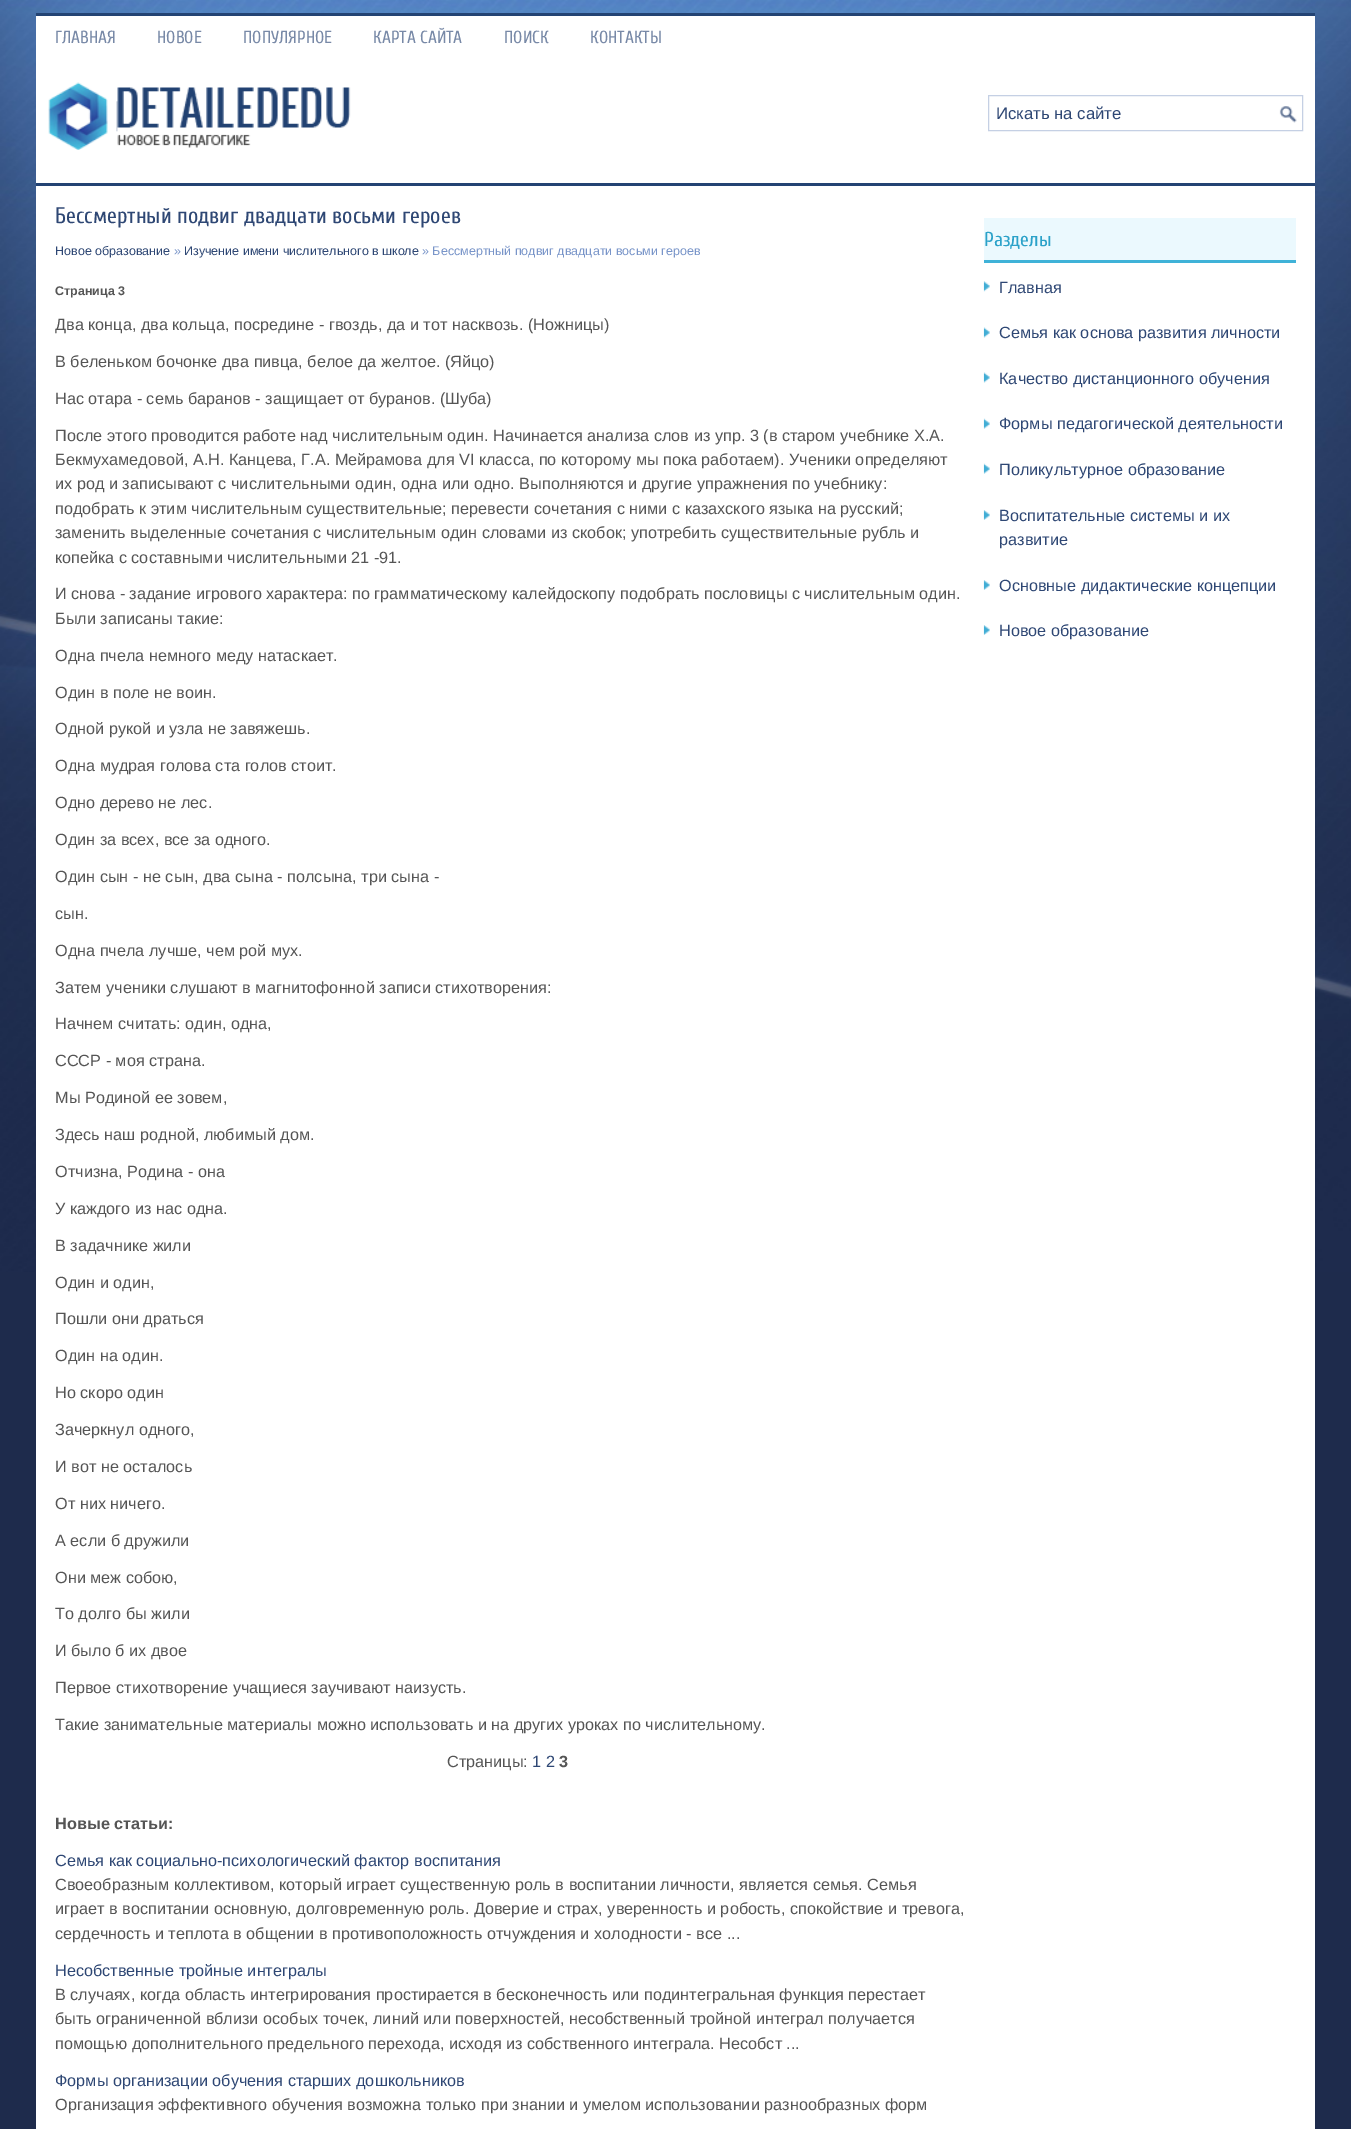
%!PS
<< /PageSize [1351 2129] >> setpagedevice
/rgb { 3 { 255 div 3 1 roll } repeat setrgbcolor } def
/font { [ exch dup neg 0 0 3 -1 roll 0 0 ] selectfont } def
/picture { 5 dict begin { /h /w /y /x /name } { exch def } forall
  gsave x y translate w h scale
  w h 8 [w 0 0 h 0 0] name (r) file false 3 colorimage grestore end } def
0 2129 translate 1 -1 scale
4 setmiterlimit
30 43 76 rgb
0 0 1351 2129 rectfill
(img/1.rgb) 0 0 1351 1272 picture
[
  [36 13 1279 3 35 67 115]
  [36 16 1279 167 255 255 255]
  [36 183 1279 3 35 67 115]
] { aload pop rgb rectfill } forall
(img/2.rgb) 48 82 303 68 picture
(img/3.rgb) 1279 106 18 17 picture
197 208 228 rgb
988.5 95.5 314 35 rectstroke
[
  [36 186 1279 1943 255 255 255]
  [984 218 312 42 235 249 254]
  [984 260 312 3 63 178 216]
] { aload pop rgb rectfill } forall
(img/4.rgb) 983 281 7 11 picture
(img/5.rgb) 983 327 7 11 picture
(img/5.rgb) 983 372 7 11 picture
(img/6.rgb) 983 418 7 11 picture
(img/6.rgb) 983 463 7 11 picture
(img/7.rgb) 983 510 7 10 picture
(img/7.rgb) 983 580 7 10 picture
(img/7.rgb) 983 625 7 10 picture
/Cuprum-Regular 17.5 font
120 137 167 rgb
[
  [(ГЛАВНАЯ) 55 43]
  [(НОВОЕ) 157 43]
  [(ПОПУЛЯРНОЕ) 243 43]
  [(КАРТА САЙТА) 373 43]
  [(ПОИСК) 504 43]
  [(КОНТАКТЫ) 590 43]
] { aload pop moveto show } forall
/LiberationSans-Regular 16.75 font
46 71 116 rgb
996 119 moveto (Искать на сайте) show
/Cuprum-Regular 22.5 font
55 223 moveto (Бессмертный подвиг двадцати восьми героев) show
/LiberationSans-Regular 12.5 font
55 255 moveto (Новое образование) show
121 149 201 rgb
174 255 moveto (») show
46 71 116 rgb
184 255 moveto (Изучение имени числительного в школе) show
121 149 201 rgb
422 255 moveto (» Бессмертный подвиг двадцати восьми героев) show
/LiberationSans-Bold 12.5 font
85 85 85 rgb
55 295 moveto (Страница 3) show
/LiberationSans-Regular 16.25 font
[
  [(Два конца, два кольца, посредине - гвоздь, да и тот насквозь. \(Ножницы\)) 55 330]
  [(В беленьком бочонке два пивца, белое да желтое. \(Яйцо\)) 55 367]
  [(Нас отара - семь баранов - защищает от буранов. \(Шуба\)) 55 404]
  [(После этого проводится работе над числительным один. Начинается анализа слов из упр. 3 \(в старом учебнике X.А.) 55 441]
  [(Бекмухамедовой, А.Н. Канцева, Г.А. Мейрамова для VI класса, по которому мы пока работаем\). Ученики определяют) 55 465]
  [(их род и записывают с числительными один, одна или одно. Выполняются и другие упражнения по учебнику:) 55 489]
  [(подобрать к этим числительным существительные; перевести сочетания с ними с казахского языка на русский;) 55 514]
  [(заменить выделенные сочетания с числительным один словами из скобок; употребить существительные рубль и) 55 538]
  [(копейка с составными числительными 21 -91.) 55 563]
  [(И снова - задание игрового характера: по грамматическому калейдоскопу подобрать пословицы с числительным один.) 55 599]
  [(Были записаны такие:) 55 624]
  [(Одна пчела немного меду натаскает.) 55 661]
  [(Один в поле не воин.) 55 698]
  [(Одной рукой и узла не завяжешь.) 55 734]
  [(Одна мудрая голова ста голов стоит.) 55 771]
  [(Одно дерево не лес.) 55 808]
  [(Один за всех, все за одного.) 55 845]
  [(Один сын - не сын, два сына - полсына, три сына -) 55 882]
  [(сын.) 55 919]
  [(Одна пчела лучше, чем рой мух.) 55 956]
  [(Затем ученики слушают в магнитофонной записи стихотворения:) 55 993]
  [(Начнем считать: один, одна,) 55 1029]
  [(СССР - моя страна.) 55 1066]
  [(Мы Родиной ее зовем,) 55 1103]
  [(Здесь наш родной, любимый дом.) 55 1140]
  [(Отчизна, Родина - она) 55 1177]
  [(У каждого из нас одна.) 55 1214]
  [(В задачнике жили) 55 1251]
  [(Один и один,) 55 1288]
  [(Пошли они драться) 55 1324]
  [(Один на один.) 55 1361]
  [(Но скоро один) 55 1398]
  [(Зачеркнул одного,) 55 1435]
  [(И вот не осталось) 55 1472]
  [(От них ничего.) 55 1509]
  [(А если б дружили) 55 1546]
  [(Они меж собою,) 55 1583]
  [(То долго бы жили) 55 1619]
  [(И было б их двое) 55 1656]
  [(Первое стихотворение учащиеся заучивают наизусть.) 55 1693]
  [(Такие занимательные материалы можно использовать и на других уроках по числительному.) 55 1730]
  [(Страницы:) 447 1767]
] { aload pop moveto show } forall
46 71 116 rgb
532 1767 moveto (1 2) show
/LiberationSans-Bold 16.25 font
85 85 85 rgb
559 1767 moveto (3) show
55 1829 moveto (Новые статьи:) show
/LiberationSans-Regular 16.25 font
46 71 116 rgb
55 1866 moveto (Семья как социально-психологический фактор воспитания) show
85 85 85 rgb
[
  [(Своеобразным коллективом, который играет существенную роль в воспитании личности, является семья. Семья) 55 1890]
  [(играет в воспитании основную, долговременную роль. Доверие и страх, уверенность и робость, спокойствие и тревога,) 55 1914]
  [(сердечность и теплота в общении в противоположность отчуждения и холодности - все ...) 55 1939]
] { aload pop moveto show } forall
46 71 116 rgb
55 1976 moveto (Несобственные тройные интегралы) show
85 85 85 rgb
[
  [(В случаях, когда область интегрирования простирается в бесконечность или подинтегральная функция перестает) 55 2000]
  [(быть ограниченной вблизи особых точек, линий или поверхностей, несобственный тройной интеграл получается) 55 2024]
  [(помощью дополнительного предельного перехода, исходя из собственного интеграла. Несобст ...) 55 2049]
] { aload pop moveto show } forall
46 71 116 rgb
55 2086 moveto (Формы организации обучения старших дошкольников) show
85 85 85 rgb
55 2110 moveto (Организация эффективного обучения возможна только при знании и умелом использовании разнообразных форм) show
/Cuprum-Regular 20 font
43 162 201 rgb
984 246 moveto (Разделы) show
/LiberationSans-Regular 16.25 font
46 71 116 rgb
[
  [(Главная) 999 293]
  [(Семья как основа развития личности) 999 338]
  [(Качество дистанционного обучения) 999 384]
  [(Формы педагогической деятельности) 999 429]
  [(Поликультурное образование) 999 475]
  [(Воспитательные системы и их) 999 521]
  [(развитие) 999 545]
  [(Основные дидактические концепции) 999 591]
  [(Новое образование) 999 636]
] { aload pop moveto show } forall
showpage
